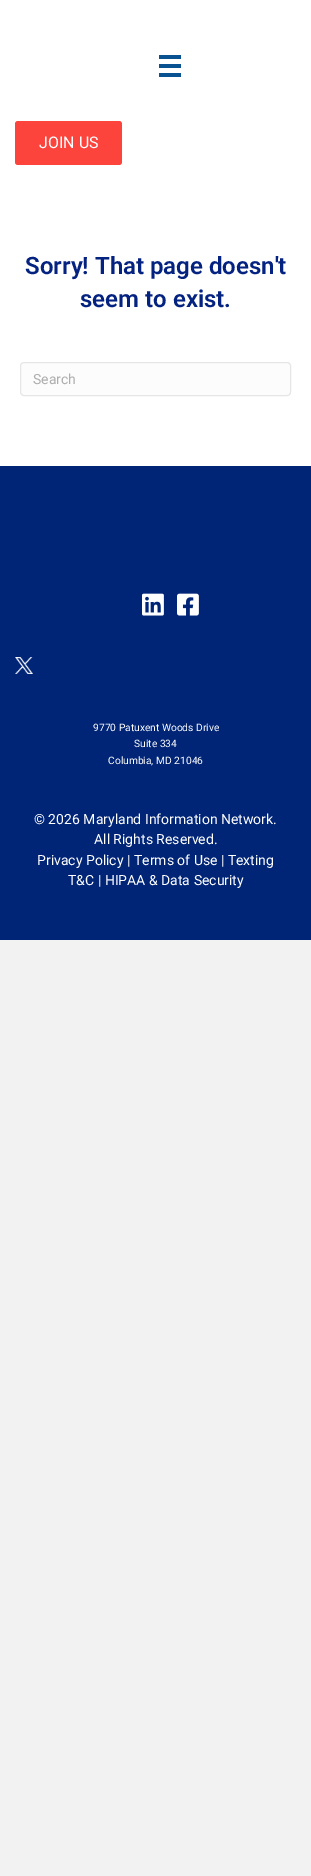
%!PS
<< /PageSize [311 1876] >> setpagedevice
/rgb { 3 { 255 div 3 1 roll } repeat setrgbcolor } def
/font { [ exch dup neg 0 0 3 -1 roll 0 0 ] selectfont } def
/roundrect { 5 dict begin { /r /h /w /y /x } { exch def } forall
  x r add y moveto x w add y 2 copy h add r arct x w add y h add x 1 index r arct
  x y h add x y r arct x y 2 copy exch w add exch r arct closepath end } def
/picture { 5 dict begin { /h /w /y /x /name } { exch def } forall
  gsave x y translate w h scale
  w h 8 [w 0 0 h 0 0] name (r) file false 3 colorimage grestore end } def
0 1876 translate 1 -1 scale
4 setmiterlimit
242 242 242 rgb
0 0 311 1876 rectfill
[
  [0 0 311 466 255 255 255]
  [159 55 22 4 9 82 145]
  [159 64 22 4 9 82 145]
  [159 73 22 4 9 82 145]
] { aload pop rgb rectfill } forall
252 68 60 rgb
15 121 107 44 3 roundrect fill
252 252 252 rgb
20.5 362.5 270 33 3.5 roundrect gsave fill grestore
230 230 230 rgb
stroke
0 36 118 rgb
0 466 311 474 rectfill
(img/1.rgb) 142 593 22 23 picture
(img/2.rgb) 177 593 22 23 picture
(img/3.rgb) 15 657 18 17 picture
/Roboto-Regular 16 font
255 255 255 rgb
39 148 moveto (JOIN US) show
/Roboto-SemiBold 24 font
4 34 127 rgb
25 274 moveto (Sorry! That page doesn't) show
80 307 moveto (seem to exist.) show
/Roboto-Regular 14 font
174 174 174 rgb
33 384 moveto (Search) show
/Roboto-Regular 10.25 font
255 255 255 rgb
[
  [(9770 Patuxent Woods Drive) 93 731]
  [(Suite 334) 134 747]
  [(Columbia, MD 21046) 108 764]
] { aload pop moveto show } forall
/Roboto-Regular 14 font
[
  [(© 2026 Maryland Information Network.) 34 824]
  [(All Rights Reserved.) 94 844]
  [(Privacy Policy | Terms of Use | Texting) 37 865]
  [(T&C | HIPAA & Data Security) 68 885]
] { aload pop moveto show } forall
showpage
